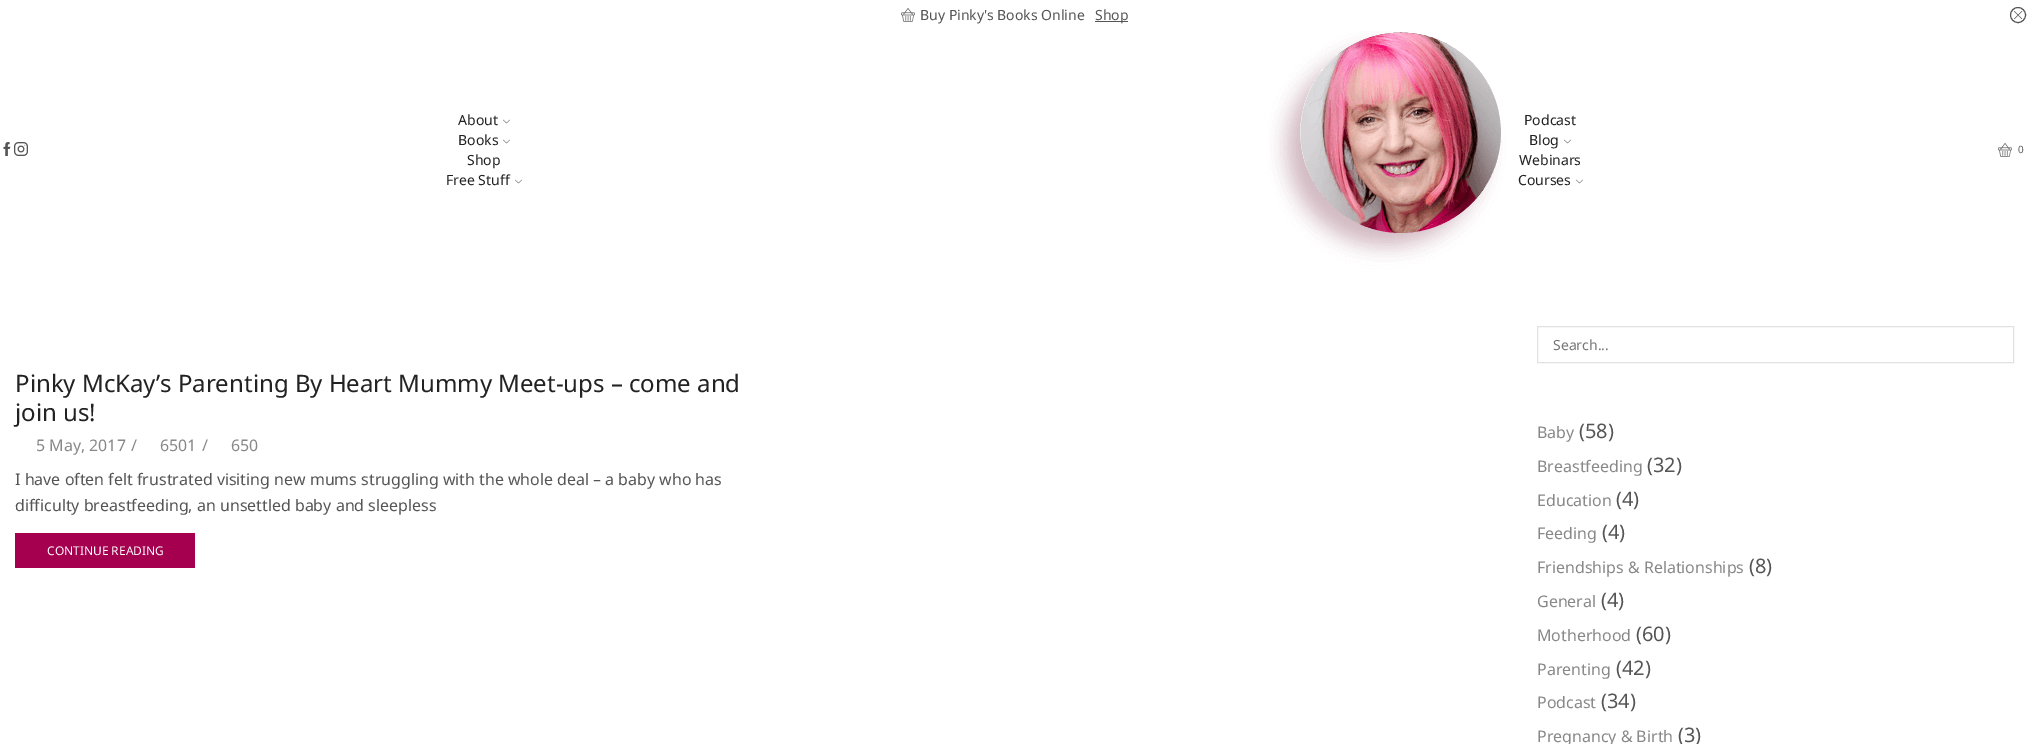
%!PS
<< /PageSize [2029 744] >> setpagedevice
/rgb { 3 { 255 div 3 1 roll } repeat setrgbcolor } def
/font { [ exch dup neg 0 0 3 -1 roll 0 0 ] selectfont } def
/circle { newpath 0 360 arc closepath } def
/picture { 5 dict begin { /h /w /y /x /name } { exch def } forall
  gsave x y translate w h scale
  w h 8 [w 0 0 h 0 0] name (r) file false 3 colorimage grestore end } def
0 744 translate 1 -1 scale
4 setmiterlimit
255 255 255 rgb
0 0 2029 744 rectfill
(img/1.rgb) 901 8 14 14 picture
85 85 85 rgb
1095 21 33 1 rectfill
2018 15 7.5 circle stroke
(img/2.rgb) 2014 11 9 9 picture
(img/3.rgb) 3 142 8 14 picture
(img/4.rgb) 14 142 14 14 picture
(img/5.rgb) 503 119 7 5 picture
(img/5.rgb) 503 139 7 5 picture
(img/5.rgb) 515 179 7 5 picture
(img/6.rgb) 1266 31 241 239 picture
(img/5.rgb) 1564 139 7 5 picture
(img/5.rgb) 1576 179 7 5 picture
(img/1.rgb) 1998 143 14 14 picture
164 0 79 rgb
15 533 180 35 rectfill
225 225 225 rgb
1537.5 326.5 476 36 rectstroke
/NotoSans-Regular 14 font
85 85 85 rgb
920 20 moveto (Buy Pinky's Books Online) show
1095 20 moveto (Shop) show
34 34 34 rgb
[
  [(About) 458 125]
  [(Books) 458 145]
  [(Shop) 467 165]
  [(Free Stuff) 446 185]
  [(Podcast) 1524 125]
  [(Blog) 1529 145]
  [(Webinars) 1519 165]
  [(Courses) 1518 185]
] { aload pop moveto show } forall
/NotoSans-Regular 10 font
85 85 85 rgb
2018 153 moveto (0) show
/NotoSans-Regular 24 font
34 34 34 rgb
15 392 moveto (Pinky McKay’s Parenting By Heart Mummy Meet-ups – come and) show
15 421 moveto (join us!) show
/NotoSans-Regular 15.95 font
136 136 136 rgb
[
  [(5 May, 2017) 36 451]
  [(/) 131 451]
  [(6501) 160 451]
  [(/) 202 451]
  [(650) 231 451]
] { aload pop moveto show } forall
85 85 85 rgb
15 485 moveto (I have often felt frustrated visiting new mums struggling with the whole deal – a baby who has) show
15 511 moveto (difficulty breastfeeding, an unsettled baby and sleepless) show
/NotoSans-Regular 12 font
255 255 255 rgb
47 555 moveto (CONTINUE READING) show
/NotoSans-Regular 14 font
117 117 117 rgb
1553 350 moveto (Search...) show
/NotoSans-Regular 15.95 font
136 136 136 rgb
1537 438 moveto (Baby) show
/NotoSans-Regular 20 font
85 85 85 rgb
1579 438 moveto (\(58\)) show
/NotoSans-Regular 15.95 font
136 136 136 rgb
1537 472 moveto (Breastfeeding) show
/NotoSans-Regular 20 font
85 85 85 rgb
1647 472 moveto (\(32\)) show
/NotoSans-Regular 15.95 font
136 136 136 rgb
1537 506 moveto (Education) show
/NotoSans-Regular 20 font
85 85 85 rgb
1616 506 moveto (\(4\)) show
/NotoSans-Regular 15.95 font
136 136 136 rgb
1537 539 moveto (Feeding) show
/NotoSans-Regular 20 font
85 85 85 rgb
1602 539 moveto (\(4\)) show
/NotoSans-Regular 15.95 font
136 136 136 rgb
1537 573 moveto (Friendships & Relationships) show
/NotoSans-Regular 20 font
85 85 85 rgb
1749 573 moveto (\(8\)) show
/NotoSans-Regular 15.95 font
136 136 136 rgb
1537 607 moveto (General) show
/NotoSans-Regular 20 font
85 85 85 rgb
1601 607 moveto (\(4\)) show
/NotoSans-Regular 15.95 font
136 136 136 rgb
1537 641 moveto (Motherhood) show
/NotoSans-Regular 20 font
85 85 85 rgb
1636 641 moveto (\(60\)) show
/NotoSans-Regular 15.95 font
136 136 136 rgb
1537 675 moveto (Parenting) show
/NotoSans-Regular 20 font
85 85 85 rgb
1616 675 moveto (\(42\)) show
/NotoSans-Regular 15.95 font
136 136 136 rgb
1537 708 moveto (Podcast) show
/NotoSans-Regular 20 font
85 85 85 rgb
1601 708 moveto (\(34\)) show
/NotoSans-Regular 15.95 font
136 136 136 rgb
1537 742 moveto (Pregnancy & Birth) show
/NotoSans-Regular 20 font
85 85 85 rgb
1678 742 moveto (\(3\)) show
showpage
